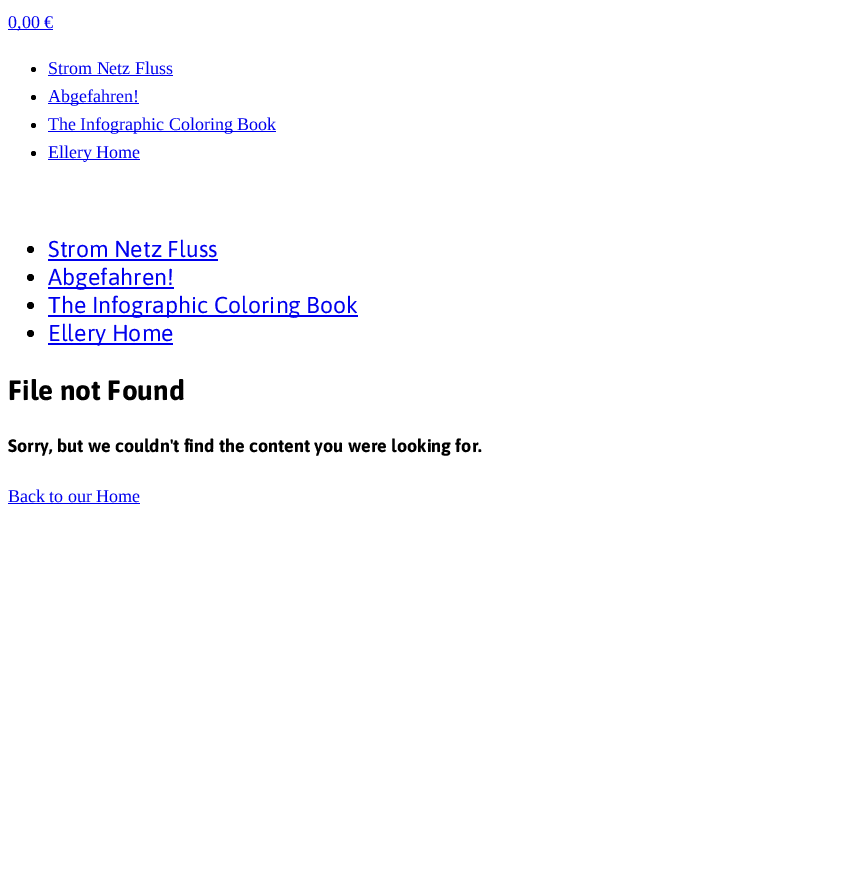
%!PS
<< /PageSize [847 876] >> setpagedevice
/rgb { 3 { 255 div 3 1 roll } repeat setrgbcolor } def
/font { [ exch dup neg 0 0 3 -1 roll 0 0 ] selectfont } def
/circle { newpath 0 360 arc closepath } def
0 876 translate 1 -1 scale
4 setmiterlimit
255 255 255 rgb
0 0 847 876 rectfill
0 0 238 rgb
8 29 45 1 rectfill
0 0 0 rgb
33.5 69.5 2.5 circle fill
0 0 238 rgb
48 75 125 1 rectfill
0 0 0 rgb
33.5 97.5 2.5 circle fill
0 0 238 rgb
48 103 91 1 rectfill
0 0 0 rgb
33.5 125.5 2.5 circle fill
0 0 238 rgb
48 131 228 1 rectfill
0 0 0 rgb
33.5 153.5 2.5 circle fill
0 0 238 rgb
48 159 92 1 rectfill
0 0 0 rgb
30.5 249.5 3.5 circle fill
0 0 238 rgb
48 259 170 2 rectfill
0 0 0 rgb
30.5 277.5 3.5 circle fill
0 0 238 rgb
48 287 126 2 rectfill
0 0 0 rgb
30.5 305.5 3.5 circle fill
0 0 238 rgb
48 315 310 2 rectfill
0 0 0 rgb
30.5 333.5 3.5 circle fill
0 0 238 rgb
48 343 125 2 rectfill
8 503 132 1 rectfill
/LiberationSerif-Regular 18 font
[
  [(0,00 €) 8 28]
  [(Strom Netz Fluss) 48 74]
  [(Abgefahren!) 48 102]
  [(The Infographic Coloring Book) 48 130]
  [(Ellery Home) 48 158]
] { aload pop moveto show } forall
/Asap-Regular 23 font
[
  [(Strom Netz Fluss) 48 257]
  [(Abgefahren!) 48 285]
  [(The Infographic Coloring Book) 48 313]
  [(Ellery Home) 48 341]
] { aload pop moveto show } forall
/Asap-Bold 28 font
0 0 0 rgb
8 400 moveto (File not Found) show
/Asap-Bold 18 font
8 452 moveto (Sorry, but we couldn't find the content you were looking for.) show
/LiberationSerif-Regular 18 font
0 0 238 rgb
8 502 moveto (Back to our Home) show
showpage
